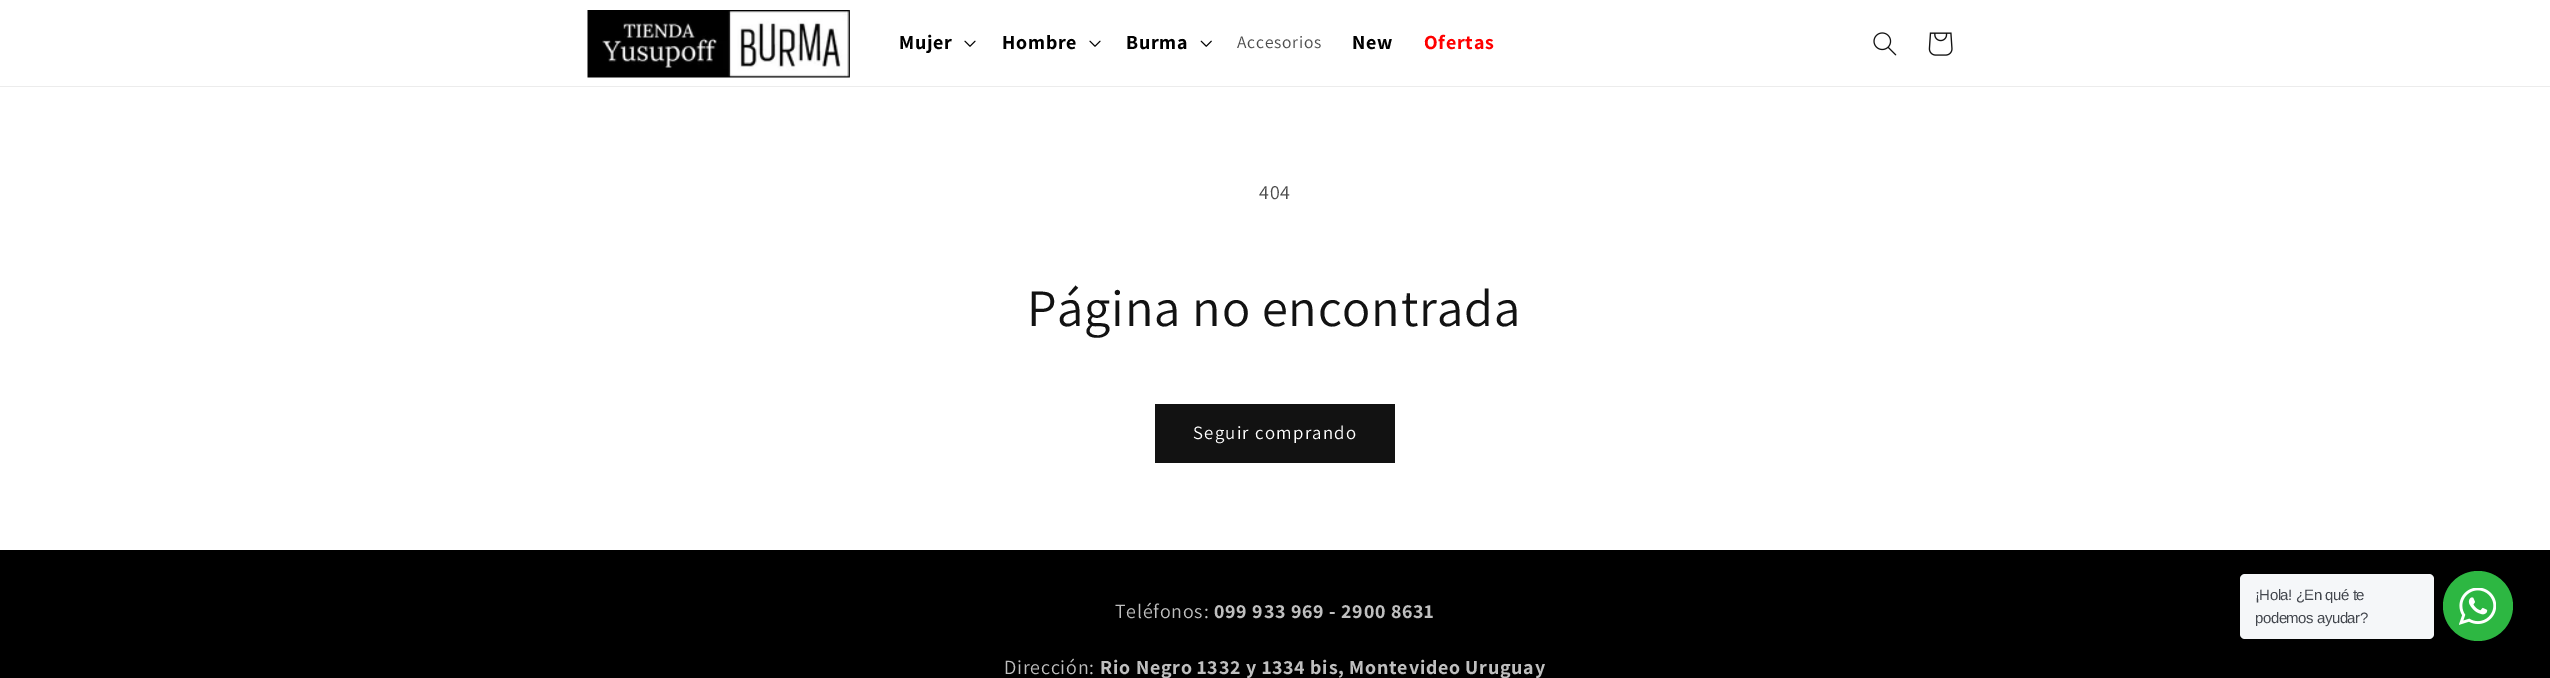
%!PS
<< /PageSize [2550 678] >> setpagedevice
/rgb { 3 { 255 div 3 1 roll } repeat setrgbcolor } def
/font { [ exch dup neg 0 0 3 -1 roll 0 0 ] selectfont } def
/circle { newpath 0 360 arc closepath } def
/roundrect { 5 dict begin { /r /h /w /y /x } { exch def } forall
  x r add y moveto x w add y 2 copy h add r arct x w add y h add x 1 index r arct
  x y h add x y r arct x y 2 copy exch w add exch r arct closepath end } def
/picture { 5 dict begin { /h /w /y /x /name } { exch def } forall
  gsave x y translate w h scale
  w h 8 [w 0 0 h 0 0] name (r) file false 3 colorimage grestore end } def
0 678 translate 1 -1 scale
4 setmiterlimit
255 255 255 rgb
0 0 2550 678 rectfill
236 236 236 rgb
0 86 2550 1 rectfill
(img/1.rgb) 587 10 263 68 picture
(img/2.rgb) 964 40 12 7 picture
(img/2.rgb) 1089 40 12 7 picture
(img/3.rgb) 1200 40 12 7 picture
(img/4.rgb) 1873 32 24 24 picture
(img/5.rgb) 1928 32 25 24 picture
18 18 18 rgb
1155 404 240 59 rectfill
0 0 0 rgb
0 550 2550 128 rectfill
245 247 249 rgb
2240 574 194 65 5 roundrect fill
45 183 66 rgb
2478 606 35 circle fill
(img/6.rgb) 2459 588 37 37 picture
/Assistant-Bold 20 font
0 0 0 rgb
899 49 moveto 0.75 0 (Mujer) ashow
1002 49 moveto 0.75 0 (Hombre) ashow
1126 49 moveto 0.75 0 (Burma) ashow
/Assistant-Regular 17.5 font
77 77 77 rgb
1237 48 moveto 0.75 0 (Accesorios) ashow
/Assistant-Bold 20 font
0 0 0 rgb
1352 49 moveto 0.75 0 (New) ashow
255 0 0 rgb
1424 49 moveto 0.75 0 (Ofertas) ashow
/Assistant-Regular 20 font
77 77 77 rgb
1259 199 moveto 0.75 0 (404) ashow
/Assistant-Regular 52.5 font
18 18 18 rgb
1027 326 moveto 0.75 0 (Página no encontrada) ashow
/Assistant-Regular 18.75 font
255 255 255 rgb
1193 439 moveto 1.25 0 (Seguir comprando) ashow
/Assistant-Regular 20 font
191 191 191 rgb
1115 618 moveto 0.75 0 (Teléfonos:) ashow
/Assistant-Bold 20 font
1214 618 moveto 0.75 0 (099 933 969 - 2900 8631) ashow
/Assistant-Regular 20 font
1004 674 moveto 0.75 0 (Dirección:) ashow
/Assistant-Bold 20 font
1100 674 moveto 0.75 0 (Rio Negro 1332 y 1334 bis, Montevideo Uruguay) ashow
/LiberationSans-Regular 15 font
67 71 78 rgb
2255 600 moveto -0.5 0 (¡Hola! ¿En qué te) ashow
2255 623 moveto -0.5 0 (podemos ayudar?) ashow
showpage
